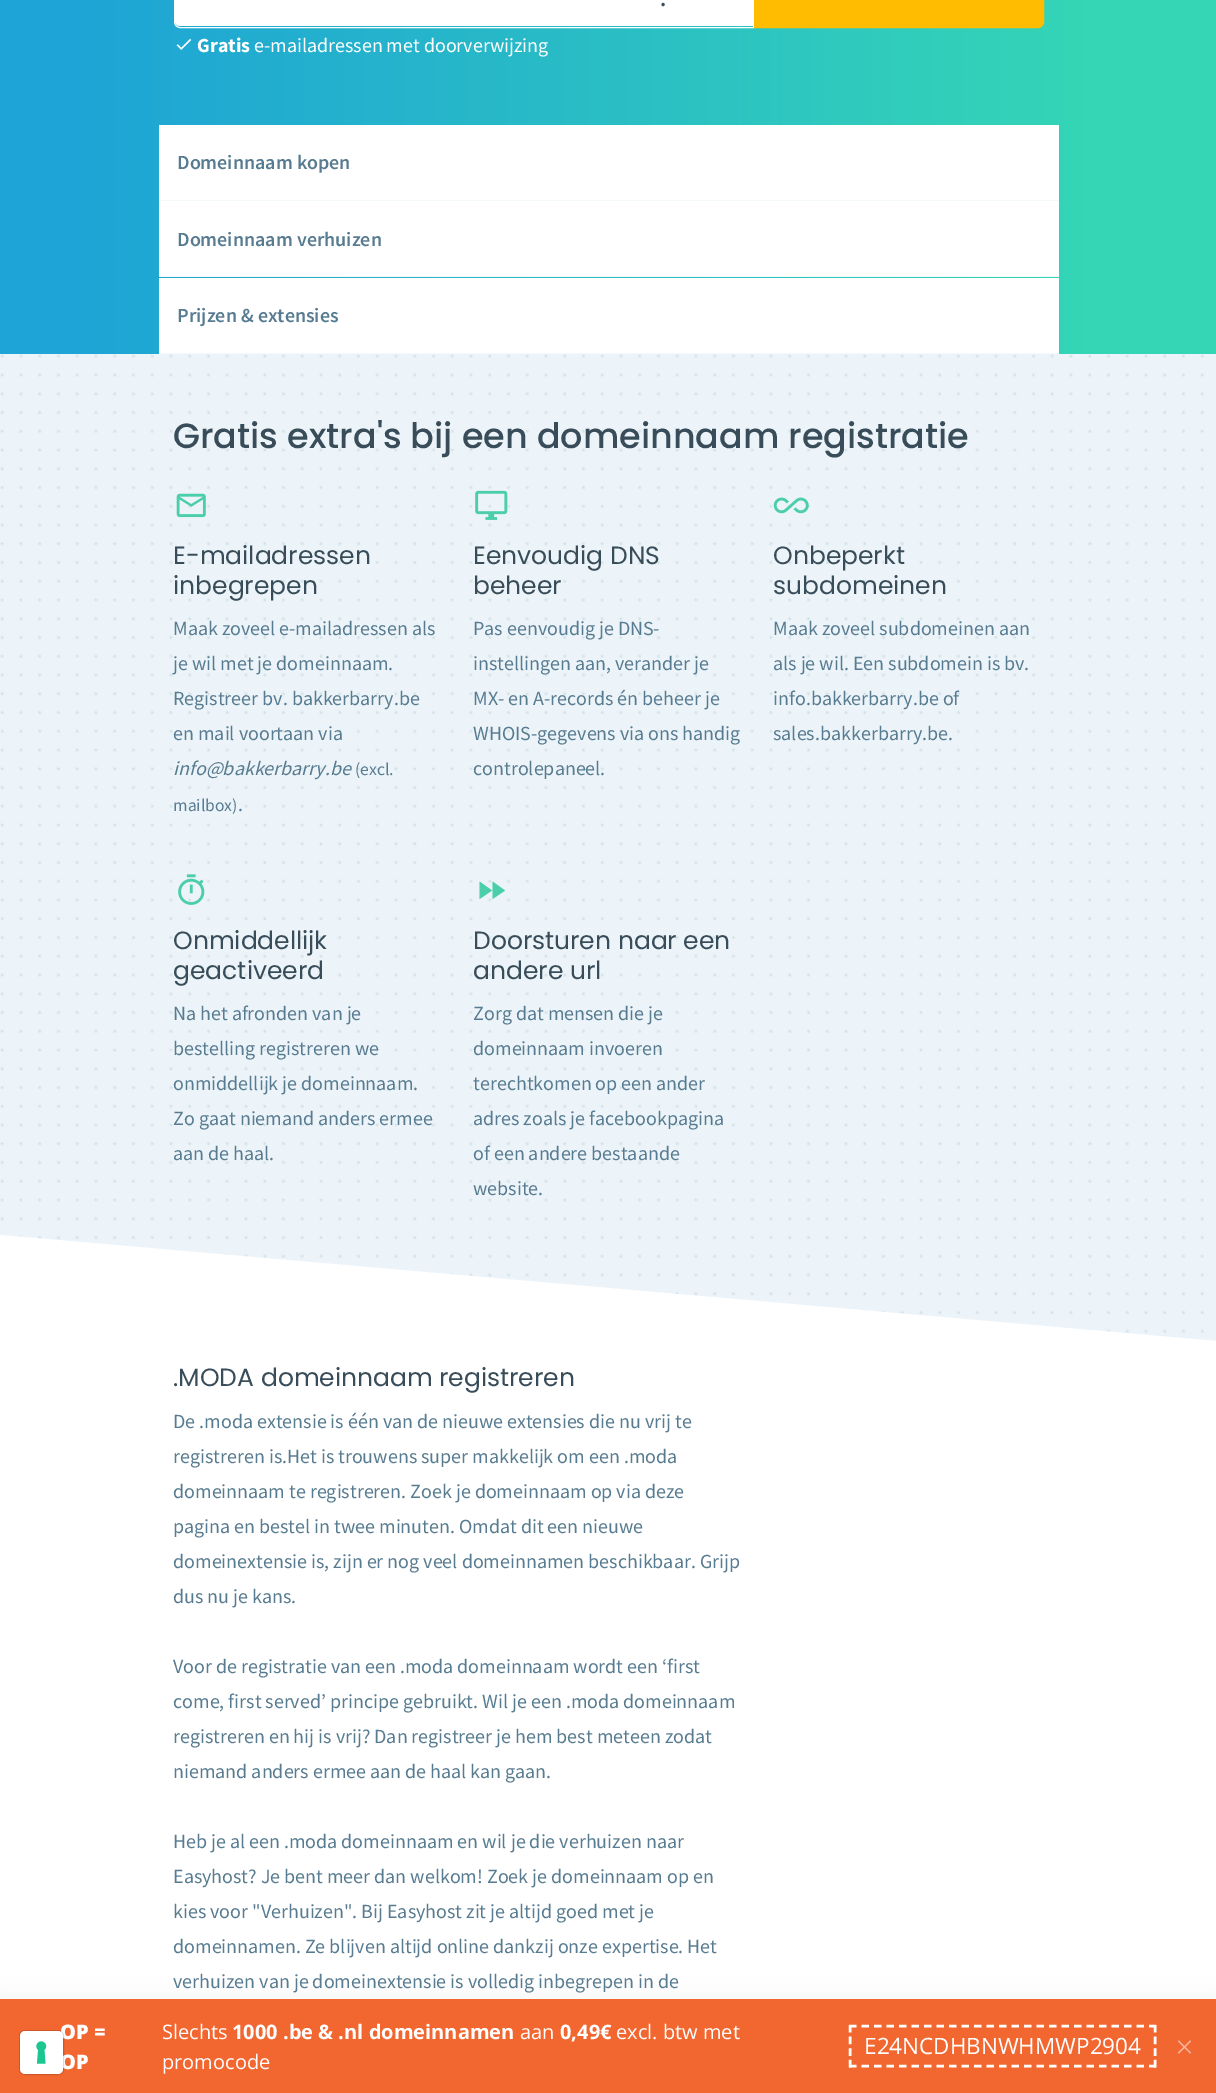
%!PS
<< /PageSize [1216 2093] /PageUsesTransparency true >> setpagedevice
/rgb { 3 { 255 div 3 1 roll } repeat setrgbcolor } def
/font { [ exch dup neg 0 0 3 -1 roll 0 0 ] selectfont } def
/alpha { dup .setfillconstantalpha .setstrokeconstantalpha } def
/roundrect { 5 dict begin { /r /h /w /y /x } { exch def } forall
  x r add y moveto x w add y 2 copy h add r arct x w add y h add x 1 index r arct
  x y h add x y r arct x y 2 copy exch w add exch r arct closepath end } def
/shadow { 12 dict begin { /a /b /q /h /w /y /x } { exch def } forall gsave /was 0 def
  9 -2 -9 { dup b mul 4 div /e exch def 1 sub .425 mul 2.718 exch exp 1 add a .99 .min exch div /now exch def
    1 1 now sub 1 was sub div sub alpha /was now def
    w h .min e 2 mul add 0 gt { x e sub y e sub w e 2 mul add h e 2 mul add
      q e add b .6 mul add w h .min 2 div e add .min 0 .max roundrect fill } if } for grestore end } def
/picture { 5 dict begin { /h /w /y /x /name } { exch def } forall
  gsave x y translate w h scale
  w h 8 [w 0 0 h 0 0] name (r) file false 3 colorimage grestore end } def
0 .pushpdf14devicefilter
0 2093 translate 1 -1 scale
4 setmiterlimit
255 255 255 rgb
0 0 1216 2093 rectfill
gsave 0 0 moveto 1216 0 lineto 1216 125 lineto 0 125 lineto closepath clip newpath
<< /ShadingType 2 /ColorSpace /DeviceRGB /Coords [0 -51 1216 -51] /Extend [true true] /Function << /FunctionType 3 /Domain [0 1] /Functions [<< /FunctionType 2 /Domain [0 1] /C0 [0.118 0.643 0.839] /C1 [0.118 0.643 0.839] /N 1 >> << /FunctionType 2 /Domain [0 1] /C0 [0.118 0.643 0.839] /C1 [0.208 0.839 0.714] /N 1 >> << /FunctionType 2 /Domain [0 1] /C0 [0.208 0.839 0.714] /C1 [0.208 0.839 0.714] /N 1 >>] /Bounds [0.06 0.9] /Encode [0 1 0 1 0 1] >> >> shfill grestore
180 -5 moveto 753 -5 lineto 753 26 lineto 180 26 lineto 177 26 175 24 175 21 curveto 175 0 lineto 175 -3 177 -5 180 -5 curveto closepath fill
180 -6.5 moveto 753.5 -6.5 lineto 753.5 27.5 lineto 180 27.5 lineto 177 27.5 174.5 25 174.5 22 curveto 174.5 -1 lineto 174.5 -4 177 -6.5 180 -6.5 curveto closepath stroke
(img/1.rgb) 176 38 16 12 picture
255 188 0 rgb
754.5 -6.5 moveto 1038 -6.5 lineto 1041 -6.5 1043.5 -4 1043.5 -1 curveto 1043.5 22 lineto 1043.5 25 1041 27.5 1038 27.5 curveto 754.5 27.5 lineto closepath gsave fill grestore
stroke
gsave 0 125 moveto 1216 125 lineto 1216 354 lineto 0 354 lineto closepath clip newpath
<< /ShadingType 2 /ColorSpace /DeviceRGB /Coords [0 239 1216 239] /Extend [true true] /Function << /FunctionType 3 /Domain [0 1] /Functions [<< /FunctionType 2 /Domain [0 1] /C0 [0.118 0.643 0.839] /C1 [0.118 0.643 0.839] /N 1 >> << /FunctionType 2 /Domain [0 1] /C0 [0.118 0.643 0.839] /C1 [0.208 0.839 0.714] /N 1 >> << /FunctionType 2 /Domain [0 1] /C0 [0.208 0.839 0.714] /C1 [0.208 0.839 0.714] /N 1 >>] /Bounds [0.06 0.9] /Encode [0 1 0 1 0 1] >> >> shfill grestore
[
  [159 200 900 1 243 248 251]
  [159 125 900 75 255 255 255]
  [159 276 900 1 243 248 251]
  [159 201 900 75 255 255 255]
  [159 353 900 1 243 248 251]
  [159 278 900 75 255 255 255]
] { aload pop rgb rectfill } forall
(img/2.rgb) 0 354 1216 987 picture
(img/3.rgb) 176 493 30 25 picture
(img/4.rgb) 475 490 33 30 picture
(img/5.rgb) 773 497 36 17 picture
(img/6.rgb) 178 874 27 31 picture
76 206 172 rgb
492.5 881.5 moveto 505 890.5 lineto 492.5 899 lineto closepath 479.5 899 moveto 479.5 881.5 lineto 492 890.5 lineto closepath fill
255 255 255 rgb
0 1235 moveto 1216 1341 lineto 1216 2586 lineto 0 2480 lineto closepath fill
54 61 77 rgb
0 2011 1216 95 0 15 0.15 shadow
242 102 48 rgb
0 1999 1216 94 rectfill
255 255 255 rgb
2.5 setlinewidth
[7.5 5] 0 setdash
849 2026 moveto 1156 2026 lineto stroke
[7.5 4.16] 0 setdash
1155 2025 moveto 1155 2067.5 lineto stroke
[7.5 5] 0 setdash
849 2066 moveto 1156 2066 lineto stroke
[7.5 4.16] 0 setdash
850 2025 moveto 850 2067.5 lineto stroke
249 179 152 rgb
1.1 setlinewidth
1 setlinecap
1 setlinejoin
[] 0 setdash
1178.5 2041 moveto 1190.5 2053 lineto 1190.5 2041 moveto 1178.5 2053 lineto stroke
/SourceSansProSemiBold-SemiBold 22.5 font
56 77 89 rgb
660 6 moveto (.) show
/SourceSansPro-Bold 20 font
255 255 255 rgb
197 52 moveto (Gratis) show
/SourceSansPro-Regular 20 font
254 52 moveto (e-mailadressen met doorverwijzing) show
/SourceSansProSemiBold-SemiBold 20 font
87 123 144 rgb
[
  [(Domeinnaam kopen) 177 169]
  [(Domeinnaam verhuizen) 177 246]
  [(Prijzen & extensies) 177 322]
] { aload pop moveto show } forall
/Poppins-Medium 35 font
56 77 89 rgb
173 448 moveto (Gratis extra's bij een domeinnaam registratie) show
/Poppins-Regular 25 font
173 564 moveto (E-mailadressen) show
173 594 moveto (inbegrepen) show
/SourceSansPro-Regular 20 font
87 123 144 rgb
[
  [(Maak zoveel e-mailadressen als) 173 635]
  [(je wil met je domeinnaam.) 173 670]
  [(Registreer bv. bakkerbarry.be) 173 705]
  [(en mail voortaan via) 173 740]
] { aload pop moveto show } forall
/SourceSansPro-Italic 20 font
173 775 moveto (info@bakkerbarry.be) show
/SourceSansPro-Regular 17.5 font
355 775 moveto (\(excl.) show
173 811 moveto (mailbox\)) show
/SourceSansPro-Regular 20 font
238 811 moveto (.) show
/Poppins-Regular 25 font
56 77 89 rgb
473 564 moveto (Eenvoudig DNS) show
473 594 moveto (beheer) show
/SourceSansPro-Regular 20 font
87 123 144 rgb
[
  [(Pas eenvoudig je DNS-) 473 635]
  [(instellingen aan, verander je) 473 670]
  [(MX- en A-records én beheer je) 473 705]
  [(WHOIS-gegevens via ons handig) 473 740]
  [(controlepaneel.) 473 775]
] { aload pop moveto show } forall
/Poppins-Regular 25 font
56 77 89 rgb
773 564 moveto (Onbeperkt) show
773 594 moveto (subdomeinen) show
/SourceSansPro-Regular 20 font
87 123 144 rgb
[
  [(Maak zoveel subdomeinen aan) 773 635]
  [(als je wil. Een subdomein is bv.) 773 670]
  [(info.bakkerbarry.be of) 773 705]
  [(sales.bakkerbarry.be.) 773 740]
] { aload pop moveto show } forall
/Poppins-Regular 25 font
56 77 89 rgb
173 949 moveto (Onmiddellijk) show
173 979 moveto (geactiveerd) show
/SourceSansPro-Regular 20 font
87 123 144 rgb
[
  [(Na het afronden van je) 173 1020]
  [(bestelling registreren we) 173 1055]
  [(onmiddellijk je domeinnaam.) 173 1090]
  [(Zo gaat niemand anders ermee) 173 1125]
  [(aan de haal.) 173 1160]
] { aload pop moveto show } forall
/Poppins-Regular 25 font
56 77 89 rgb
473 949 moveto (Doorsturen naar een) show
473 979 moveto (andere url) show
/SourceSansPro-Regular 20 font
87 123 144 rgb
[
  [(Zorg dat mensen die je) 473 1020]
  [(domeinnaam invoeren) 473 1055]
  [(terechtkomen op een ander) 473 1090]
  [(adres zoals je facebookpagina) 473 1125]
  [(of een andere bestaande) 473 1160]
  [(website.) 473 1195]
] { aload pop moveto show } forall
/Poppins-Regular 25 font
56 77 89 rgb
173 1386 moveto (.MODA domeinnaam registreren) show
/SourceSansPro-Regular 20 font
87 123 144 rgb
[
  [(De .moda extensie is één van de nieuwe extensies die nu vrij te) 173 1428]
  [(registreren is.Het is trouwens super makkelijk om een .moda) 173 1463]
  [(domeinnaam te registreren. Zoek je domeinnaam op via deze) 173 1498]
  [(pagina en bestel in twee minuten. Omdat dit een nieuwe) 173 1533]
  [(domeinextensie is, zijn er nog veel domeinnamen beschikbaar. Grijp) 173 1568]
  [(dus nu je kans.) 173 1603]
  [(Voor de registratie van een .moda domeinnaam wordt een ‘first) 173 1673]
  [(come, first served’ principe gebruikt. Wil je een .moda domeinnaam) 173 1708]
  [(registreren en hij is vrij? Dan registreer je hem best meteen zodat) 173 1743]
  [(niemand anders ermee aan de haal kan gaan.) 173 1778]
  [(Heb je al een .moda domeinnaam en wil je die verhuizen naar) 173 1848]
  [(Easyhost? Je bent meer dan welkom! Zoek je domeinnaam op en) 173 1883]
  [(kies voor "Verhuizen". Bij Easyhost zit je altijd goed met je) 173 1918]
  [(domeinnamen. Ze blijven altijd online dankzij onze expertise. Het) 173 1953]
  [(verhuizen van je domeinextensie is volledig inbegrepen in de) 173 1988]
] { aload pop moveto show } forall
/OpenSans-ExtraBold 20 font
255 255 255 rgb
60 2039 moveto (OP =) show
60 2069 moveto (OP) show
0.15 alpha
0 0 0 rgb
1 setlinewidth
0 setlinecap
0 setlinejoin
19.5 2030.5 44 44 5.5 roundrect stroke
1 alpha
255 255 255 rgb
20 2031 43 43 5 roundrect fill
(img/7.rgb) 36 2041 11 23 picture
/OpenSans-Regular 20 font
162 2039 moveto (Slechts) show
/OpenSans-Bold 20 font
232 2039 moveto (1000 .be & .nl domeinnamen) show
/OpenSans-Regular 20 font
520 2039 moveto (aan) show
/OpenSans-Bold 20 font
560 2039 moveto (0,49€) show
/OpenSans-Regular 20 font
616 2039 moveto (excl. btw met) show
162 2069 moveto (promocode) show
/OpenSans-Regular 22.5 font
864 2054 moveto (E24NCDHBNWHMWP2904) show
.poppdf14devicefilter showpage
